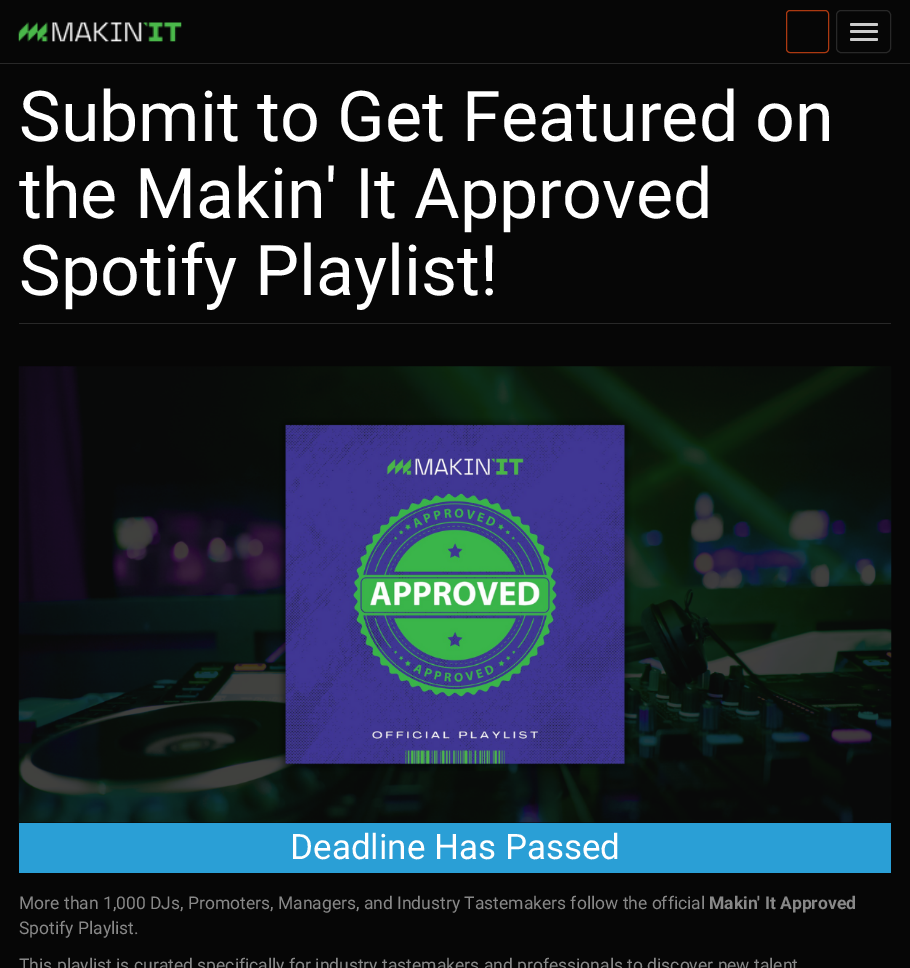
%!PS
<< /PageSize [910 968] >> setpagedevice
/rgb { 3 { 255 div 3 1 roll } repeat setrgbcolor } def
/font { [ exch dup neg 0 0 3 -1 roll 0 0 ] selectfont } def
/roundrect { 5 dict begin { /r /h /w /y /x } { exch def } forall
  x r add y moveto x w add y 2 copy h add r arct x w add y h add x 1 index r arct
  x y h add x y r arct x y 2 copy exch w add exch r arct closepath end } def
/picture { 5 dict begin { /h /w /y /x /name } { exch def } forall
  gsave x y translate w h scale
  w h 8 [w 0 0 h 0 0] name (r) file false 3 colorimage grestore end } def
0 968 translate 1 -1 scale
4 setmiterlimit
6 6 6 rgb
0 0 910 968 rectfill
40 40 40 rgb
0 63 910 1 rectfill
(img/1.rgb) 18 22 164 20 picture
172 57 17 rgb
786.5 10.5 42 42 3.5 roundrect stroke
40 40 40 rgb
836.5 10.5 54 42 4.5 roundrect stroke
204 204 204 rgb
850 23 28 3 1.5 roundrect fill
850 30 28 3 1.5 roundrect fill
850 38 28 3 1.5 roundrect fill
40 40 40 rgb
19 323 872 1 rectfill
(img/2.rgb) 18 366 874 457 picture
42 159 214 rgb
19 823 872 50 rectfill
/Roboto-Regular 70 font
255 255 255 rgb
[
  [(Submit to Get Featured on) 19 141]
  [(the Makin' It Approved) 19 218]
  [(Spotify Playlist!) 19 295]
] { aload pop moveto show } forall
/Roboto-Regular 35 font
290 859 moveto (Deadline Has Passed) show
/Roboto-Regular 17.5 font
136 136 136 rgb
19 909 moveto (More than 1,000 DJs, Promoters, Managers, and Industry Tastemakers follow the official) show
/Roboto-Bold 17.5 font
709 909 moveto (Makin' It Approved) show
/Roboto-Regular 17.5 font
19 934 moveto (Spotify Playlist.) show
19 971 moveto (This playlist is curated specifically for industry tastemakers and professionals to discover new talent) show
showpage
